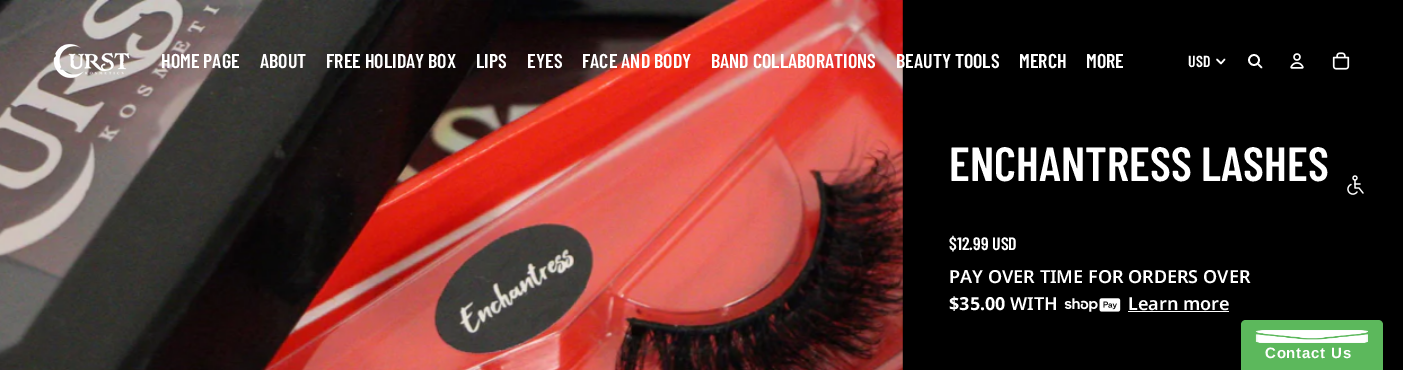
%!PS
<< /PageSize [1403 370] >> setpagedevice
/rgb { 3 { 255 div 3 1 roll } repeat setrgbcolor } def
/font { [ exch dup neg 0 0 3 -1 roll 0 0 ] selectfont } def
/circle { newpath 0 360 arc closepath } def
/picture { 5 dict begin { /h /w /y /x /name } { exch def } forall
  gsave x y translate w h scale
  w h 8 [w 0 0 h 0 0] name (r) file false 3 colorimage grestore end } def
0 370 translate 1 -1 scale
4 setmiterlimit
0 0 0 rgb
0 0 1403 370 rectfill
(img/4.rgb) 0 0 903 370 picture
(img/1.rgb) 53 44 77 35 picture
255 255 255 rgb
1.5 setlinewidth
1 setlinecap
1 setlinejoin
1224.5 59.5 moveto 1221 63.5 lineto 1217 59.5 lineto stroke
1.7 setlinewidth
0 setlinecap
0 setlinejoin
1254 60 5 circle stroke
1 setlinecap
1 setlinejoin
1258 64 moveto 1261.5 67.5 lineto stroke
(img/2.rgb) 1290 53 14 16 picture
(img/3.rgb) 1332 52 18 18 picture
(img/5.rgb) 1064 298 57 14 picture
1128 311 101 1 rectfill
(img/6.rgb) 1347 175 17 20 picture
92 184 92 rgb
1246 320 moveto 1378 320 lineto 1381 320 1383 322 1383 325 curveto 1383 370 lineto 1241 370 lineto 1241 325 lineto 1241 322 1243 320 1246 320 curveto closepath fill
(img/7.rgb) 1255 330 113 13 picture
/BarlowCondensed-SemiBold 20 font
255 255 255 rgb
[
  [(HOME PAGE) 161 68]
  [(ABOUT) 260 68]
  [(FREE HOLIDAY BOX) 326 68]
  [(LIPS) 476 68]
  [(EYES) 527 68]
  [(FACE AND BODY) 582 68]
  [(BAND COLLABORATIONS) 711 68]
  [(BEAUTY TOOLS) 896 68]
  [(MERCH) 1019 68]
  [(MORE) 1086 68]
] { aload pop moveto show } forall
/BarlowCondensed-SemiBold 16 font
1188 67 moveto (USD) show
/BarlowCondensed-SemiBold 48 font
949 181 moveto (ENCHANTRESS LASHES) show
/BarlowCondensed-SemiBold 18 font
949 250 moveto ($12.99 USD) show
/NotoSans-SemiBold 18 font
949 283 moveto (PAY OVER TIME FOR ORDERS OVER) show
/NotoSans-Bold 18 font
949 310 moveto ($35.00) show
/NotoSans-SemiBold 18 font
1010 310 moveto (WITH) show
1128 310 moveto (Learn more) show
/LiberationSans-Bold 15 font
1265 358 moveto 0.75 0 (Contact Us) ashow
showpage
